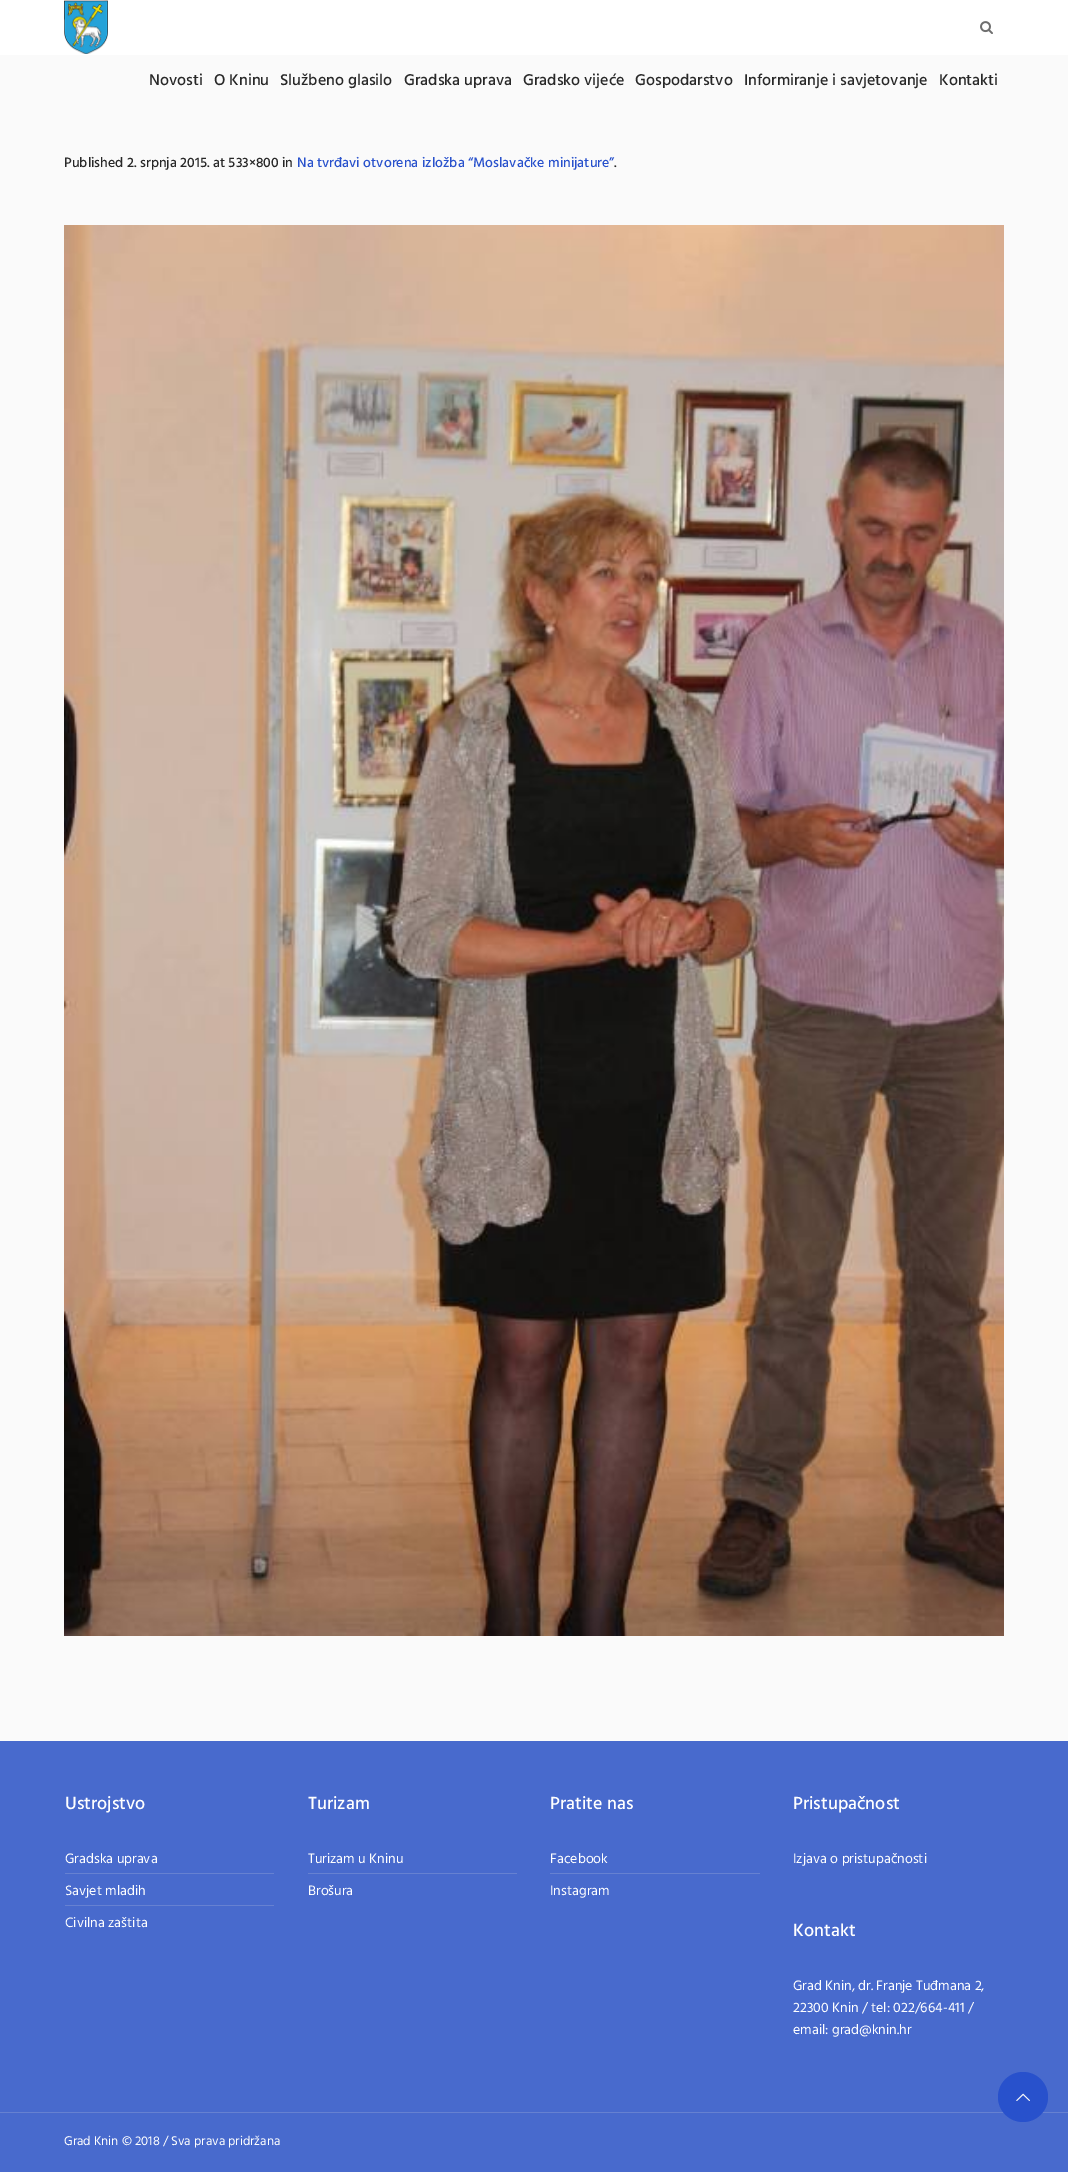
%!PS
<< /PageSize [1068 2172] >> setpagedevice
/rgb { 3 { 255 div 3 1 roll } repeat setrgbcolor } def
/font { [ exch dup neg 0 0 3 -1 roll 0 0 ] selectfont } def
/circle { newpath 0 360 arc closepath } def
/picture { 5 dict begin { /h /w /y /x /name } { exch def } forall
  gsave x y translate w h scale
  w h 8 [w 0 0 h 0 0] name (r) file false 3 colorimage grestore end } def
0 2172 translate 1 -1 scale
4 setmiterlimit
250 250 250 rgb
0 0 1068 2172 rectfill
255 255 255 rgb
0 0 1068 55 rectfill
(img/1.rgb) 64 0 44 54 picture
(img/2.rgb) 980 21 13 13 picture
(img/3.rgb) 64 225 940 1411 picture
[
  [0 1741 1068 371 72 106 205]
  [65 1873 209 1 102 129 209]
  [65 1905 209 1 102 129 209]
  [308 1873 209 1 102 129 209]
  [550 1873 210 1 102 129 209]
  [0 2113 1068 59 72 106 205]
  [0 2112 1068 1 102 129 209]
] { aload pop rgb rectfill } forall
40 81 204 rgb
1023 2097 25 circle fill
(img/4.rgb) 1016 2093 14 8 picture
/Hind-Medium 16 font
40 40 40 rgb
[
  [(Novosti) 149 85]
  [(O Kninu) 214 85]
  [(Službeno glasilo) 280 85]
  [(Gradska uprava) 404 85]
  [(Gradsko vijeće) 523 85]
  [(Gospodarstvo) 635 85]
  [(Informiranje i savjetovanje) 744 85]
  [(Kontakti) 939 85]
] { aload pop moveto show } forall
/Hind-Medium 14 font
64 167 moveto (Published 2. srpnja 2015. at 533×800 in) show
40 81 204 rgb
297 167 moveto (Na tvrđavi otvorena izložba “Moslavačke minijature”) show
40 40 40 rgb
614 167 moveto (.) show
/Hind-Medium 18 font
255 255 255 rgb
65 1809 moveto (Ustrojstvo) show
/Hind-Regular 14 font
[
  [(Gradska uprava) 65 1863]
  [(Savjet mladih) 65 1895]
  [(Civilna zaštita) 65 1927]
] { aload pop moveto show } forall
/Hind-Medium 18 font
308 1809 moveto (Turizam) show
/Hind-Regular 14 font
308 1863 moveto (Turizam u Kninu) show
308 1895 moveto (Brošura) show
/Hind-Medium 18 font
550 1809 moveto (Pratite nas) show
/Hind-Regular 14 font
550 1863 moveto (Facebook) show
550 1895 moveto (Instagram) show
/Hind-Medium 18 font
793 1809 moveto (Pristupačnost) show
/Hind-Regular 14 font
793 1863 moveto (Izjava o pristupačnosti) show
/Hind-Medium 18 font
793 1936 moveto (Kontakt) show
/Hind-Regular 14 font
[
  [(Grad Knin, dr. Franje Tuđmana 2,) 793 1990]
  [(22300 Knin / tel: 022/664-411 /) 793 2012]
  [(email: grad@knin.hr) 793 2034]
] { aload pop moveto show } forall
/Hind-Regular 13 font
64 2145 moveto (Grad Knin © 2018 / Sva prava pridržana) show
showpage
